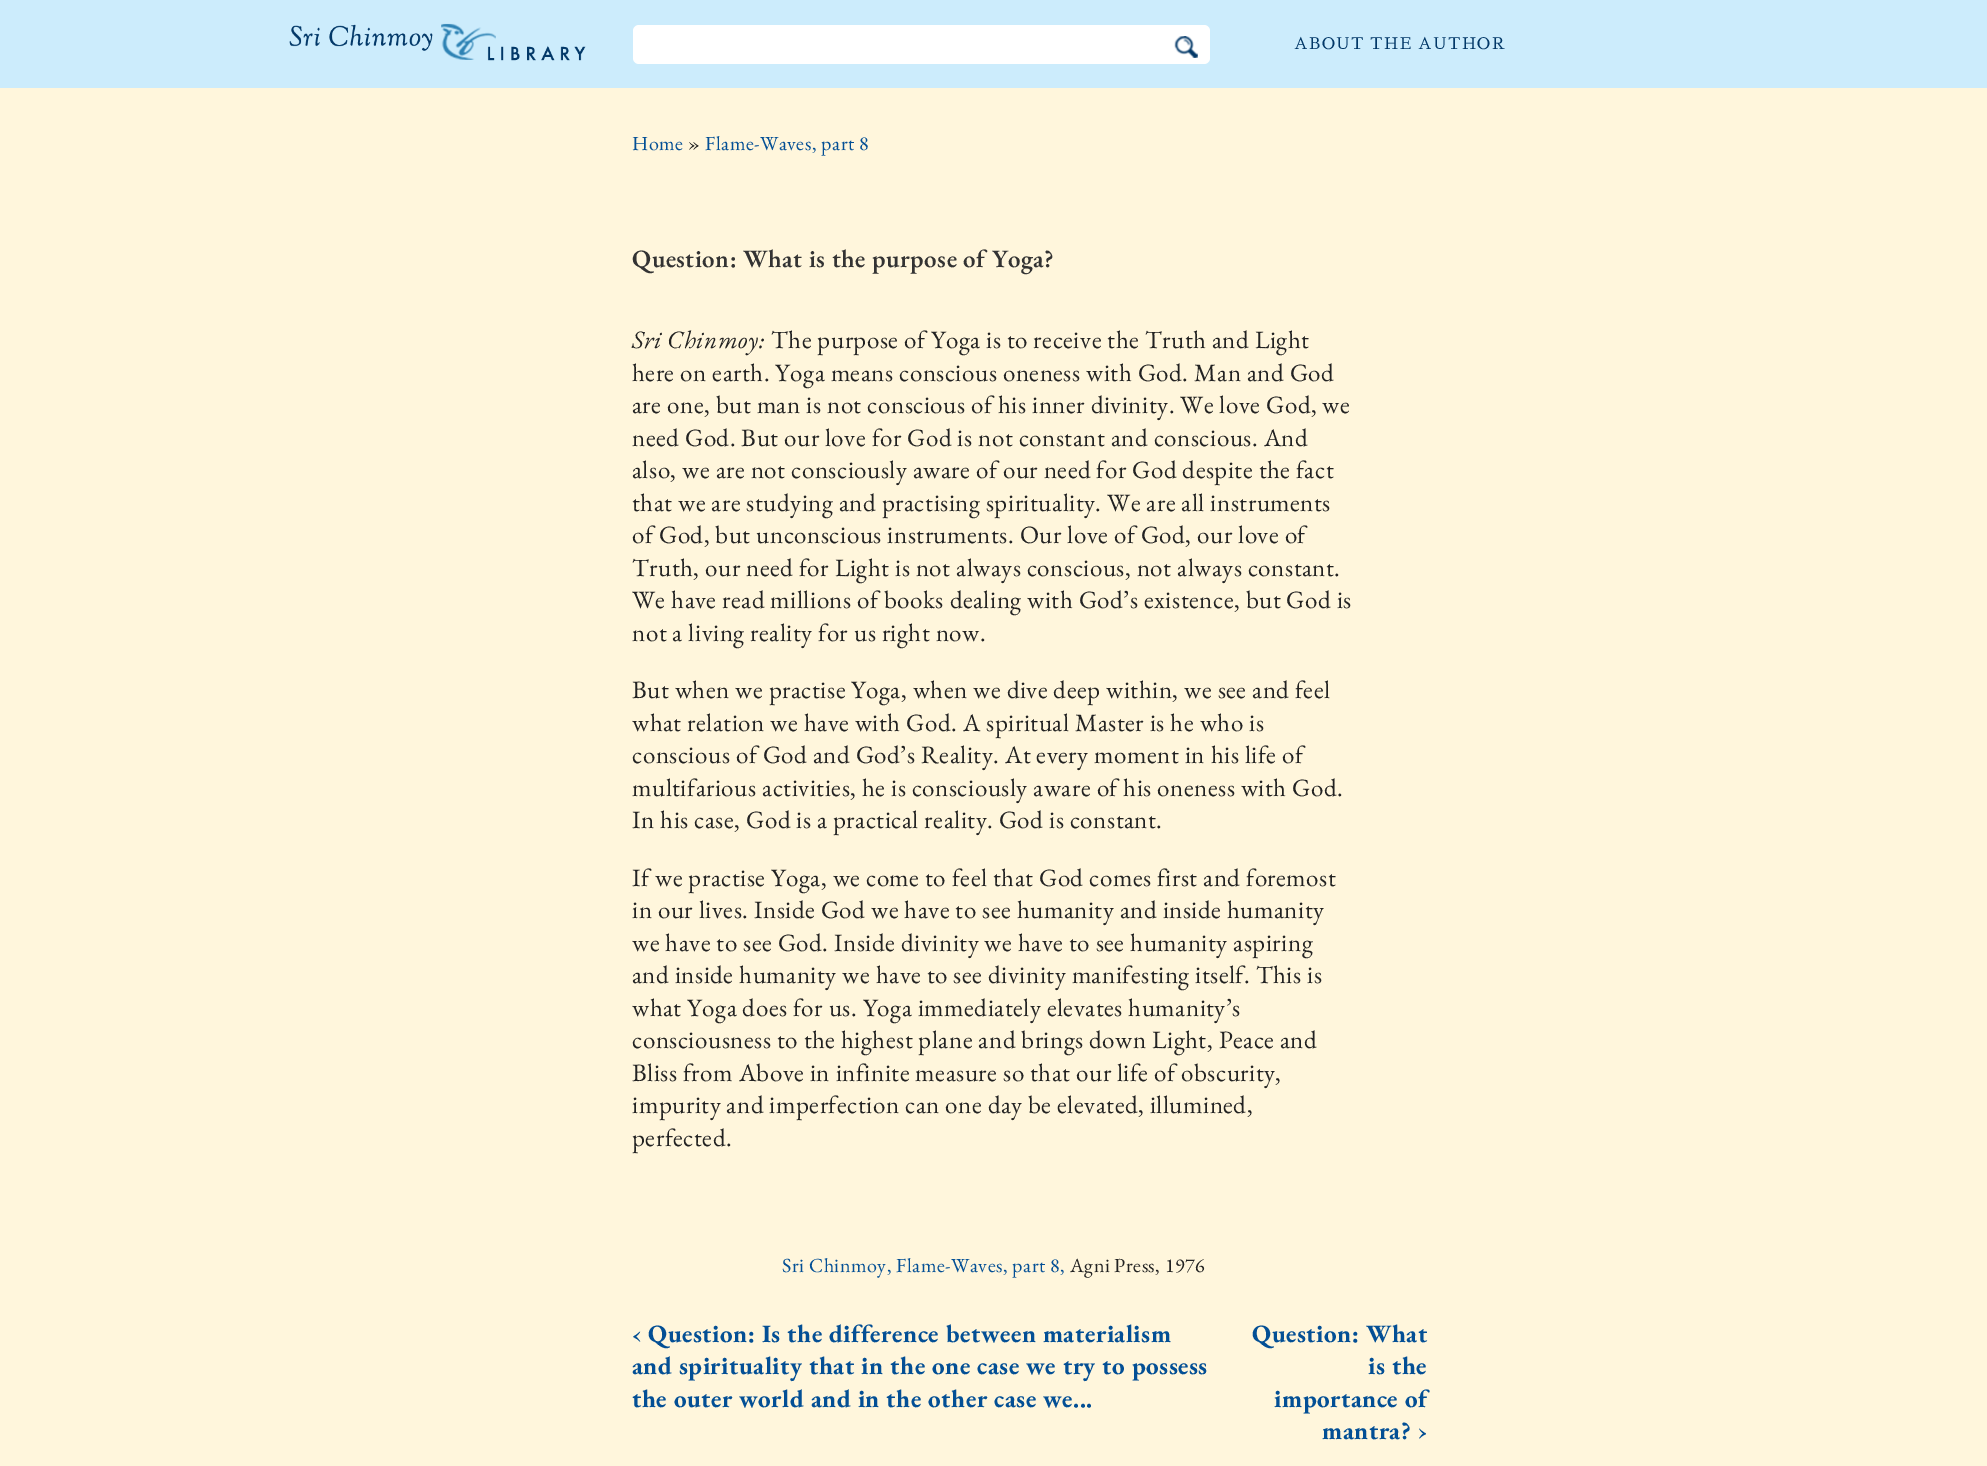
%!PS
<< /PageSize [1987 1466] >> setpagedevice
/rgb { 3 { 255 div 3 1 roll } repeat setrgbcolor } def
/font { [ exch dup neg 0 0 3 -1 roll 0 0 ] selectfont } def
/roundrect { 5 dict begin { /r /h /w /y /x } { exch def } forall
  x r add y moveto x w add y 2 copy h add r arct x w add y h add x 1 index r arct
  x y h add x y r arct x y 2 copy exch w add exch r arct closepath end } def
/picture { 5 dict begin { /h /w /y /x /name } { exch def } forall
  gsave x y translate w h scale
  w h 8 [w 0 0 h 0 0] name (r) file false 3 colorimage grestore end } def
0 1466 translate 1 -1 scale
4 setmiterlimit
255 246 220 rgb
0 0 1987 1466 rectfill
204 236 252 rgb
0 0 1987 88 rectfill
(img/1.rgb) 289 23 297 38 picture
255 255 255 rgb
633 25 577 39 6 roundrect fill
(img/2.rgb) 1174 36 24 22 picture
/SawarabiMincho-Regular 16 font
2 56 104 rgb
1294 49 moveto 1.25 0 (ABOUT THE AUTHOR) ashow
/EBGaramond-Regular 20 font
3 79 149 rgb
632 150 moveto 0.5 0 (Home) ashow
34 34 34 rgb
688 150 moveto 0.5 0 (») ashow
3 79 149 rgb
705 150 moveto 0.5 0 (Flame-Waves, part 8) ashow
/EBGaramond-SemiBold 25 font
51 51 51 rgb
632 267 moveto 0.5 0 (Question: What is the purpose of Yoga?) ashow
/EBGaramond-Italic 25 font
34 34 34 rgb
632 348 moveto 0.5 0 (Sri Chinmoy:) ashow
/EBGaramond-Regular 25 font
771 348 moveto 0.5 0 (The purpose of Yoga is to receive the Truth and Light) ashow
632 381 moveto 0.5 0 (here on earth. Yoga means conscious oneness with God. Man and God) ashow
632 413 moveto 0.5 0 (are one, but man is not conscious of his inner divinity. We love God, we) ashow
632 446 moveto 0.5 0 (need God. But our love for God is not constant and conscious. And) ashow
632 478 moveto 0.5 0 (also, we are not consciously aware of our need for God despite the fact) ashow
632 511 moveto 0.5 0 (that we are studying and practising spirituality. We are all instruments) ashow
632 543 moveto 0.5 0 (of God, but unconscious instruments. Our love of God, our love of) ashow
632 576 moveto 0.5 0 (Truth, our need for Light is not always conscious, not always constant.) ashow
632 608 moveto 0.5 0 (We have read millions of books dealing with God’s existence, but God is) ashow
632 641 moveto 0.5 0 (not a living reality for us right now.) ashow
632 698 moveto 0.5 0 (But when we practise Yoga, when we dive deep within, we see and feel) ashow
632 731 moveto 0.5 0 (what relation we have with God. A spiritual Master is he who is) ashow
632 763 moveto 0.5 0 (conscious of God and God’s Reality. At every moment in his life of) ashow
632 796 moveto 0.5 0 (multifarious activities, he is consciously aware of his oneness with God.) ashow
632 828 moveto 0.5 0 (In his case, God is a practical reality. God is constant.) ashow
632 886 moveto 0.5 0 (If we practise Yoga, we come to feel that God comes first and foremost) ashow
632 918 moveto 0.5 0 (in our lives. Inside God we have to see humanity and inside humanity) ashow
632 951 moveto 0.5 0 (we have to see God. Inside divinity we have to see humanity aspiring) ashow
632 983 moveto 0.5 0 (and inside humanity we have to see divinity manifesting itself. This is) ashow
632 1016 moveto 0.5 0 (what Yoga does for us. Yoga immediately elevates humanity’s) ashow
632 1048 moveto 0.5 0 (consciousness to the highest plane and brings down Light, Peace and) ashow
632 1081 moveto 0.5 0 (Bliss from Above in infinite measure so that our life of obscurity,) ashow
632 1113 moveto 0.5 0 (impurity and imperfection can one day be elevated, illumined,) ashow
632 1146 moveto 0.5 0 (perfected.) ashow
/EBGaramond-Regular 20 font
3 79 149 rgb
782 1272 moveto 0.5 0 (Sri Chinmoy, Flame-Waves, part 8,) ashow
34 34 34 rgb
1070 1272 moveto 0.5 0 (Agni Press, 1976) ashow
/EBGaramond-Bold 25 font
3 79 149 rgb
632 1342 moveto 0.5 0 (‹ Question: Is the difference between materialism) ashow
632 1374 moveto 0.5 0 (and spirituality that in the one case we try to possess) ashow
632 1407 moveto 0.5 0 (the outer world and in the other case we...) ashow
1252 1342 moveto 0.5 0 (Question: What) ashow
1368 1374 moveto 0.5 0 (is the) ashow
1274 1407 moveto 0.5 0 (importance of) ashow
1322 1439 moveto 0.5 0 (mantra? ›) ashow
showpage
